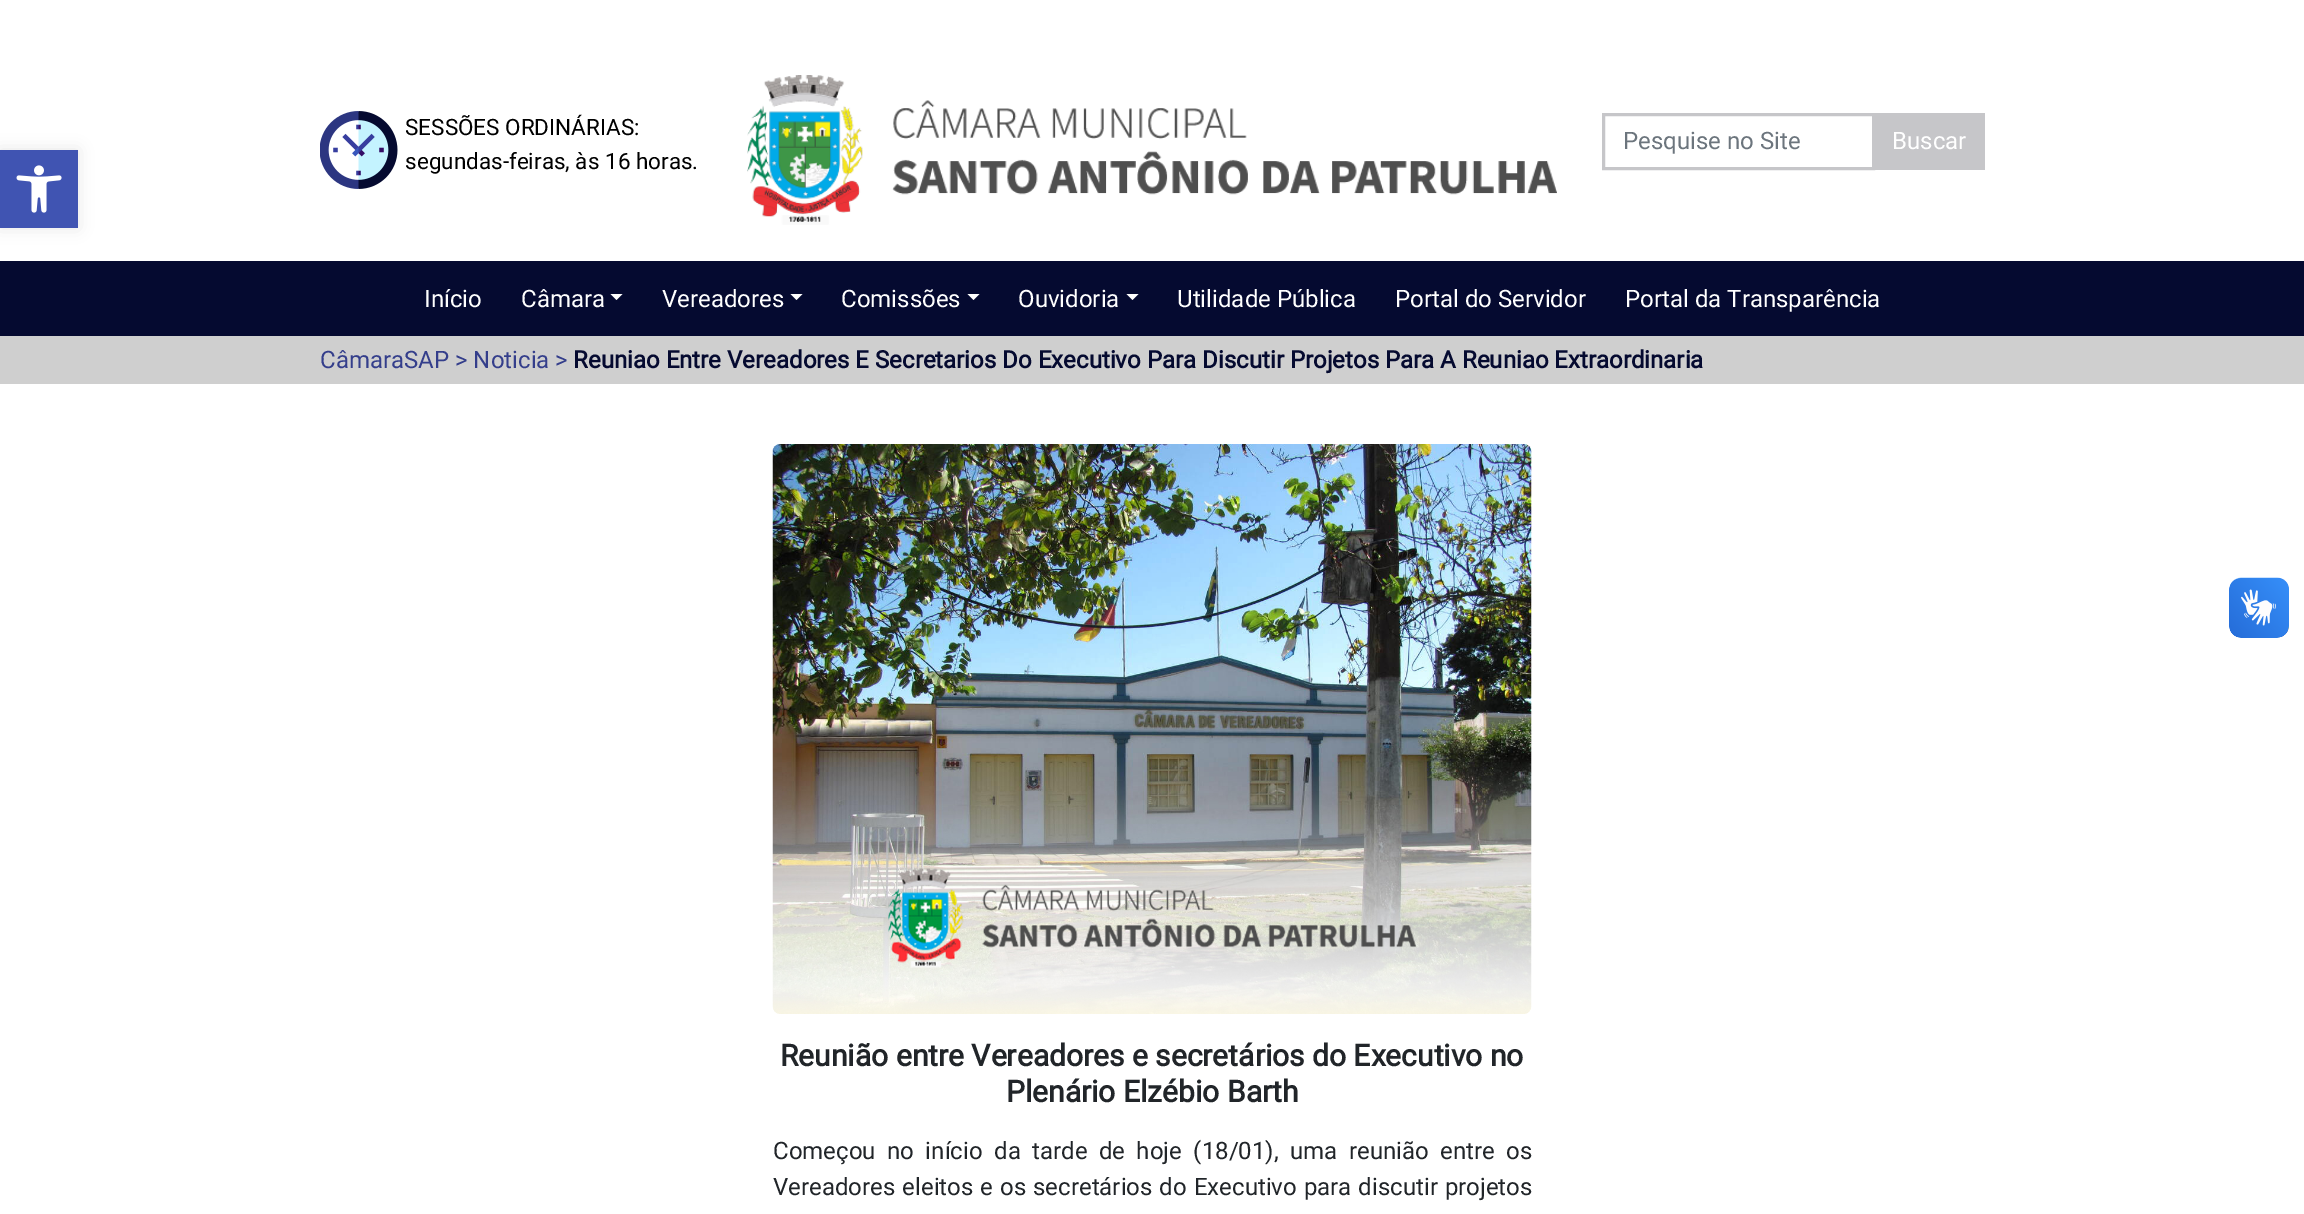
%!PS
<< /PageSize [2304 1214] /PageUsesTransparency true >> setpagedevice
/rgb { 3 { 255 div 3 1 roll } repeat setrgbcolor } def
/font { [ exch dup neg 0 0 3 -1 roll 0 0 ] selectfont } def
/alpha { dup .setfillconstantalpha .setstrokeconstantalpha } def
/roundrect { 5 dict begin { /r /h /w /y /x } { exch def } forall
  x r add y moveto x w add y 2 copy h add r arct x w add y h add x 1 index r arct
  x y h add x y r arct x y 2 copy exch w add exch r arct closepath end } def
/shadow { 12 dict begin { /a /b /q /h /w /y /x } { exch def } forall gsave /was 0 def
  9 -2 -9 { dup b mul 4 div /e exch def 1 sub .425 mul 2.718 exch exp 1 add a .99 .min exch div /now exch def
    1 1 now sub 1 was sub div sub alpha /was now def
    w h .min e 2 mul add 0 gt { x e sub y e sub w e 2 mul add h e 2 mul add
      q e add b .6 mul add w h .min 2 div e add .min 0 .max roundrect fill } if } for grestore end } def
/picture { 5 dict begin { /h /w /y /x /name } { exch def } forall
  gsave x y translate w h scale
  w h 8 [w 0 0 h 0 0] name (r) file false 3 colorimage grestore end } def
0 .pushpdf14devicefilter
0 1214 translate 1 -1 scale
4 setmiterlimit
255 255 255 rgb
0 0 2304 1214 rectfill
0 0 0 rgb
0 150 78 78 0 7.5 0.1 shadow
64 84 178 rgb
0 150 78 78 rectfill
(img/1.rgb) 16 165 46 48 picture
(img/2.rgb) 320 111 78 78 picture
(img/3.rgb) 747 75 810 150 picture
198 198 201 rgb
3 setlinewidth
1603.5 114.5 270 54 rectstroke
1875 113 110 57 rectfill
(img/4.rgb) 2229 577 60 61 picture
(img/5.rgb) 2229 578 60 60 picture
5 10 48 rgb
0 261 2304 75 rectfill
255 255 255 rgb
610.5 294 moveto 622.5 294 lineto 616.5 300 lineto closepath fill
790.5 294 moveto 802.5 294 lineto 796.5 300 lineto closepath fill
967.5 294 moveto 979.5 294 lineto 973.5 300 lineto closepath fill
1126.5 294 moveto 1138.5 294 lineto 1132.5 300 lineto closepath fill
207 207 207 rgb
0 336 2304 48 rectfill
(img/6.rgb) 772 444 760 570 picture
/Roboto-Regular 22.5 font
0 0 0 rgb
405 135 moveto (SESSÕES ORDINÁRIAS:) show
405 169 moveto (segundas-feiras, às 16 horas.) show
/Roboto-Regular 24 font
108 117 125 rgb
1623 149 moveto (Pesquise no Site) show
255 255 255 rgb
[
  [(Buscar) 1892 149]
  [(Início) 424 307]
  [(Câmara) 521 307]
  [(Vereadores) 662 307]
  [(Comissões) 841 307]
  [(Ouvidoria) 1018 307]
  [(Utilidade Pública) 1177 307]
  [(Portal do Servidor) 1395 307]
  [(Portal da Transparência) 1625 307]
] { aload pop moveto show } forall
52 62 139 rgb
320 368 moveto (CâmaraSAP > Noticia >) show
/Roboto-Bold 24 font
5 10 48 rgb
573 368 moveto (Reuniao Entre Vereadores E Secretarios Do Executivo Para Discutir Projetos Para A Reuniao Extraordinaria) show
/Roboto-Bold 30 font
33 37 41 rgb
780 1066 moveto (Reunião entre Vereadores e secretários do Executivo no) show
1006 1102 moveto (Plenário Elzébio Barth) show
/Roboto-Regular 24 font
773 1159 moveto 5.5 0 32 (Começou no início da tarde de hoje \(18/01\), uma reunião entre os) widthshow
773 1195 moveto 1 0 32 (Vereadores eleitos e os secretários do Executivo para discutir projetos) widthshow
.poppdf14devicefilter showpage
